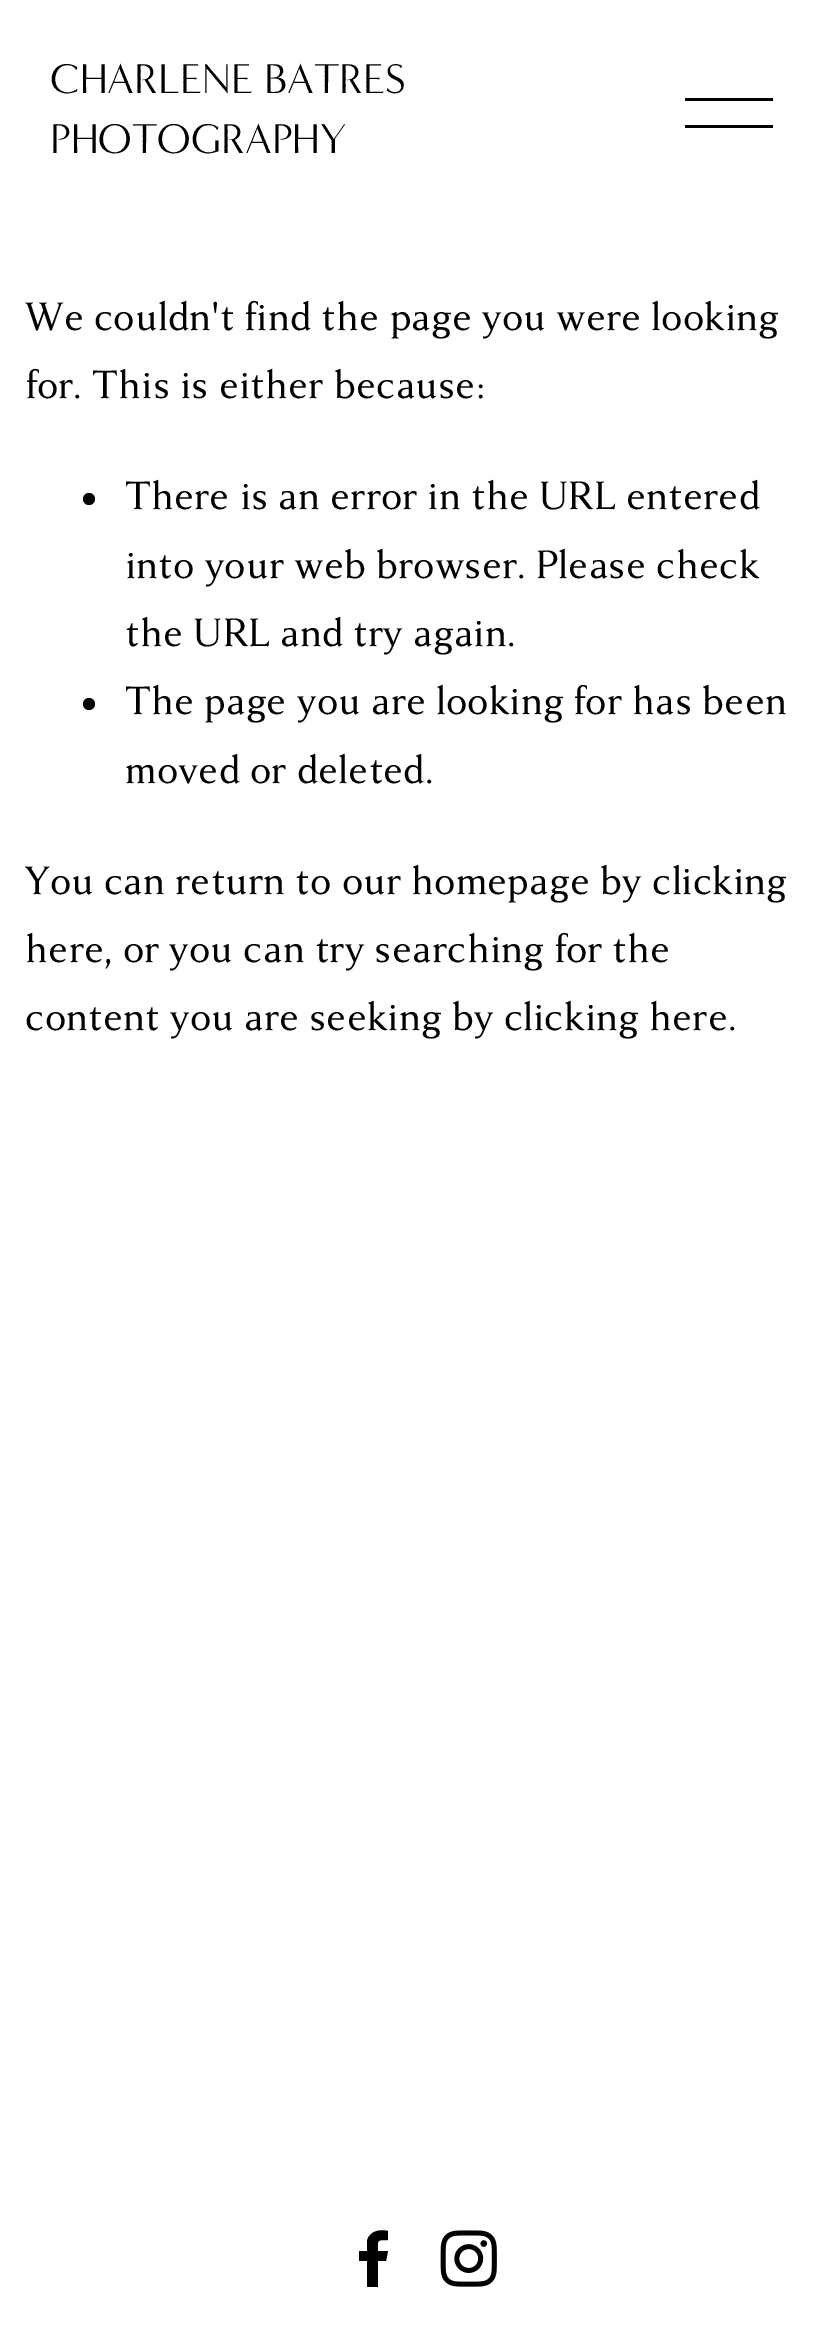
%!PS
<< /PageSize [836 2331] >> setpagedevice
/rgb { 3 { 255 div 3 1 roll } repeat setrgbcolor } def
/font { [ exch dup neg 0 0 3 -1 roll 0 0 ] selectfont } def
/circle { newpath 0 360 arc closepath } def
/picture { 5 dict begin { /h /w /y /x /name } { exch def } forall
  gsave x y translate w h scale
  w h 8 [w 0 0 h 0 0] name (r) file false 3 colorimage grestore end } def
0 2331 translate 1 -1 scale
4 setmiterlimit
255 255 255 rgb
0 0 836 2331 rectfill
0 0 0 rgb
685 98 88 3 rectfill
685 125 88 3 rectfill
89 499 6 circle fill
89 704 6 circle fill
378 2287 moveto 378 2261 lineto 386 2261 lineto 388 2251 lineto 378 2251 lineto 378 2240 376 2240 388 2240 curveto 388 2231 lineto 380 2229 369 2231 367 2241 curveto 367 2251 lineto 359 2251 lineto 359 2261 lineto 367 2261 lineto 367 2287 lineto closepath fill
(img/1.rgb) 440 2230 57 57 picture
/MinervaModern-Regular 42.75 font
50 93 moveto (CHARLENE BATRES) show
50 153 moveto (PHOTOGRAPHY) show
/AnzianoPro-Regular 42.75 font
[
  [(We couldn't find the page you were looking) 25 330]
  [(for. This is either because:) 25 398]
  [(There is an error in the URL entered) 125 509]
  [(into your web browser. Please check) 125 578]
  [(the URL and try again.) 125 646]
  [(The page you are looking for has been) 125 714]
  [(moved or deleted.) 125 783]
  [(You can return to our homepage by clicking) 25 894]
  [(here, or you can try searching for the) 25 962]
  [(content you are seeking by clicking here.) 25 1030]
] { aload pop moveto show } forall
showpage
